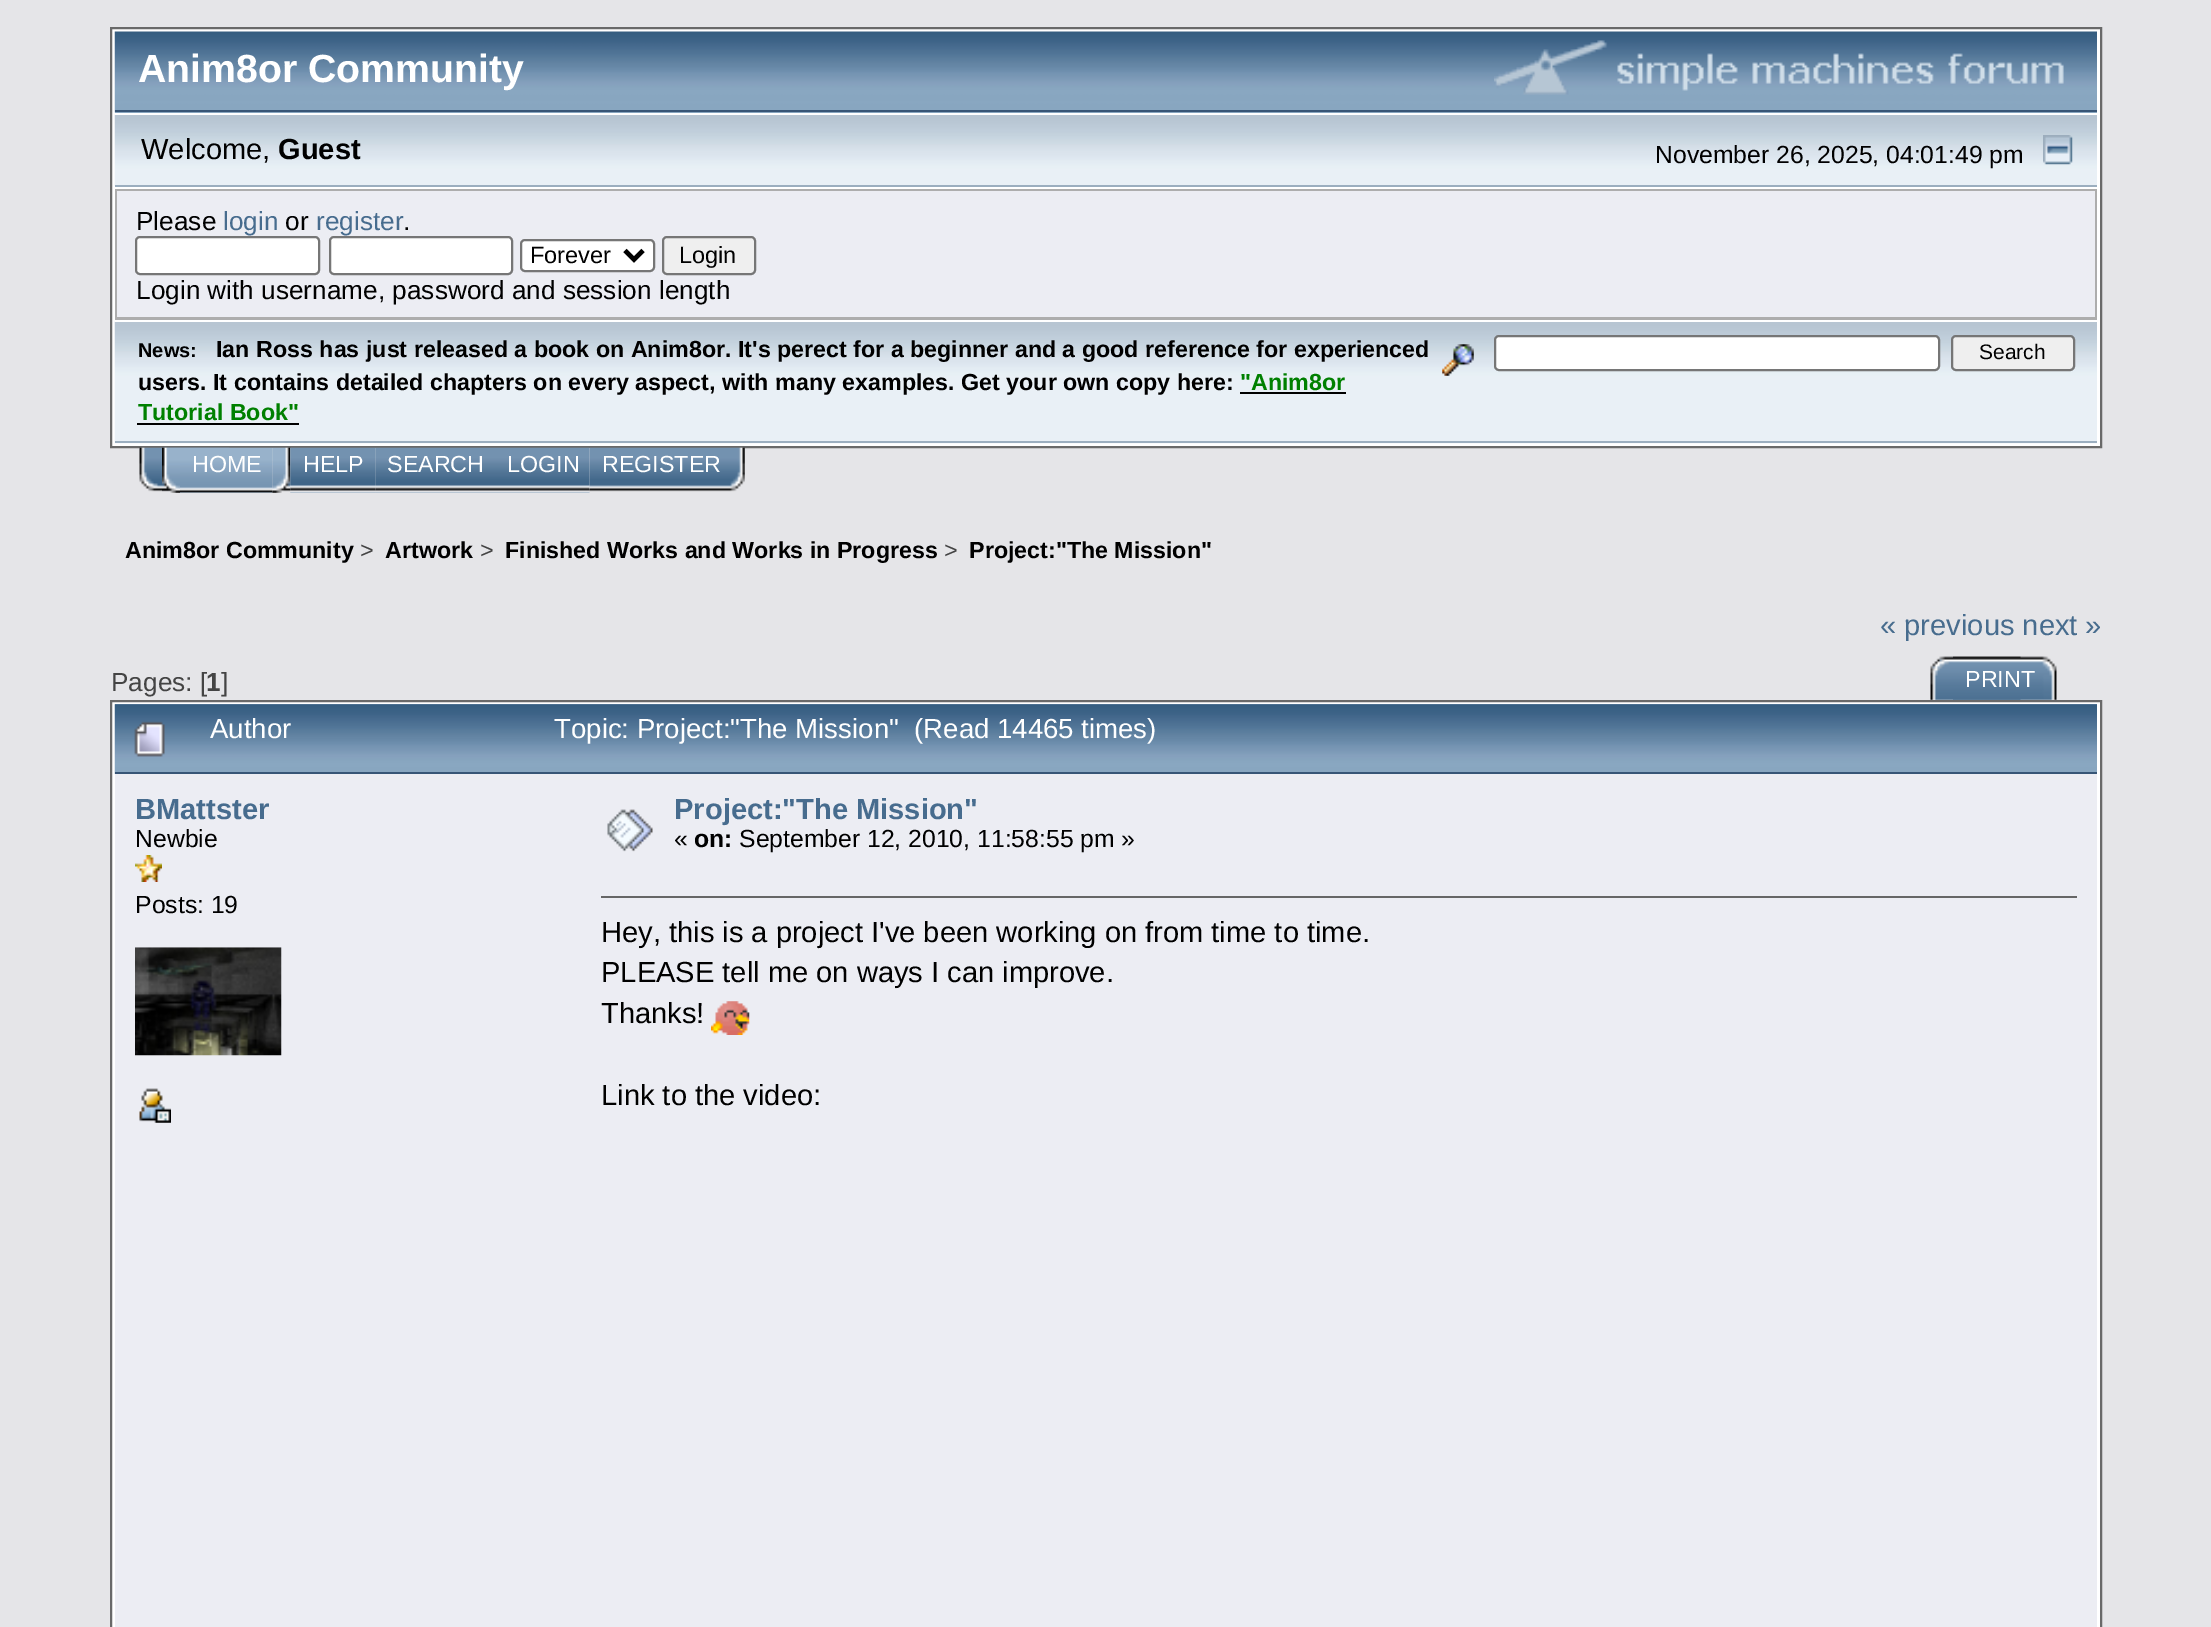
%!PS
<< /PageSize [2211 1627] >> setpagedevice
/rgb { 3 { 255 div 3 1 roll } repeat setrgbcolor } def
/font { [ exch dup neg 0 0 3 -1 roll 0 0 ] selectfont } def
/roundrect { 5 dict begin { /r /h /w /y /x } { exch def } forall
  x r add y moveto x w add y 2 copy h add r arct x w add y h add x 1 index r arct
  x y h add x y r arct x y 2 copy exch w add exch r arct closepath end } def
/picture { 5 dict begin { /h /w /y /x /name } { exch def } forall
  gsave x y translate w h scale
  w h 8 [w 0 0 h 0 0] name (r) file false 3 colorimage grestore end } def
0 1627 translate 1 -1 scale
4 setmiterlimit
229 229 232 rgb
0 0 2211 1627 rectfill
255 255 255 rgb
111 28 moveto 2101 28 lineto 2101 447 lineto 111 447 lineto closepath gsave fill grestore
105 105 105 rgb
2 setlinewidth
stroke
136 166 192 rgb
115 112 1982 1 rectfill
(img/1.rgb) 114 31 1983 82 picture
55 85 118 rgb
115 110 1982 2 rectfill
(img/2.rgb) 1494 40 570 55 picture
(img/3.rgb) 114 114 1983 72 picture
255 255 255 rgb
115 114 1982 1 rectfill
155 174 191 rgb
115 185 1982 2 rectfill
(img/4.rgb) 2043 135 30 30 picture
173 173 173 rgb
115 189 1982 131 rectfill
236 237 243 rgb
117 191 1978 126 rectfill
255 255 255 rgb
136 237 183 37 4 roundrect gsave fill grestore
118 118 118 rgb
stroke
255 255 255 rgb
330 237 182 37 4 roundrect gsave fill grestore
118 118 118 rgb
stroke
255 255 255 rgb
521 240 133 31 4 roundrect gsave fill grestore
118 118 118 rgb
stroke
0 0 0 rgb
4.5 setlinewidth
625 250.5 moveto 634 259.5 lineto 643 250.5 lineto stroke
239 239 239 rgb
663 237 92 37 4 roundrect gsave fill grestore
118 118 118 rgb
2 setlinewidth
stroke
(img/5.rgb) 114 321 1983 123 picture
[
  [115 321 1982 1 255 255 255]
  [115 441 1982 2 155 174 191]
  [1240 392 106 2 0 0 0]
  [137 423 162 2 0 0 0]
] { aload pop rgb rectfill } forall
(img/6.rgb) 1442 344 32 32 picture
255 255 255 rgb
1495 336 444 34 4 roundrect gsave fill grestore
118 118 118 rgb
stroke
239 239 239 rgb
1952 336 122 34 4 roundrect gsave fill grestore
118 118 118 rgb
stroke
(img/7.rgb) 139 447 91 45 picture
(img/8.rgb) 272 447 19 46 picture
(img/9.rgb) 162 447 18 46 picture
(img/10.rgb) 180 447 93 46 picture
(img/11.rgb) 290 447 86 46 picture
(img/12.rgb) 375 447 120 46 picture
(img/13.rgb) 495 447 95 46 picture
(img/14.rgb) 589 447 156 45 picture
(img/15.rgb) 1930 656 91 44 picture
(img/16.rgb) 1953 656 104 44 picture
255 255 255 rgb
111 701 moveto 2101 701 lineto 2101 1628 lineto 111 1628 lineto closepath gsave fill grestore
105 105 105 rgb
stroke
(img/17.rgb) 114 704 1983 70 picture
55 85 118 rgb
115 772 1982 2 rectfill
(img/18.rgb) 134 721 31 36 picture
236 237 243 rgb
115 774 1982 853 rectfill
(img/19.rgb) 135 855 27 27 picture
(img/20.rgb) 135 947 147 109 picture
(img/21.rgb) 139 1088 32 35 picture
(img/22.rgb) 607 809 46 43 picture
102 102 102 rgb
601 896 1476 2 rectfill
(img/23.rgb) 711 1001 39 34 picture
/LiberationSans-Bold 39.25 font
255 255 255 rgb
138 82 moveto (Anim8or Community) show
/LiberationSans-Regular 29.1 font
0 0 0 rgb
141 159 moveto (Welcome,) show
/LiberationSans-Bold 29.1 font
278 159 moveto (Guest) show
/LiberationSans-Regular 24.75 font
1655 163 moveto (November 26, 2025, 04:01:49 pm) show
/LiberationSans-Regular 26.2 font
136 230 moveto (Please) show
71 108 142 rgb
223 230 moveto (login) show
0 0 0 rgb
285 230 moveto (or) show
71 108 142 rgb
316 230 moveto (register) show
0 0 0 rgb
403 230 moveto (.) show
/LiberationSans-Regular 23.5 font
530 263 moveto (Forever) show
679 263 moveto (Login) show
/LiberationSans-Regular 26.2 font
136 299 moveto (Login with username, password and session length) show
/LiberationSans-Bold 20 font
138 357 moveto (News:) show
/LiberationSans-Bold 23.25 font
216 357 moveto (Ian Ross has just released a book on Anim8or. It's perect for a beginner and a good reference for experienced) show
138 390 moveto (users. It contains detailed chapters on every aspect, with many examples. Get your own copy here:) show
0 128 0 rgb
1240 390 moveto ("Anim8or) show
138 420 moveto (Tutorial Book") show
/LiberationSans-Regular 21 font
0 0 0 rgb
1979 359 moveto (Search) show
/LiberationSans-Regular 23.25 font
255 255 255 rgb
[
  [(HOME) 192 472]
  [(HELP) 303 472]
  [(SEARCH) 387 472]
  [(LOGIN) 507 472]
  [(REGISTER) 602 472]
] { aload pop moveto show } forall
/LiberationSans-Bold 23.25 font
0 0 0 rgb
125 558 moveto (Anim8or Community) show
/LiberationSans-Regular 23.25 font
68 68 68 rgb
360 558 moveto (>) show
/LiberationSans-Bold 23.25 font
0 0 0 rgb
385 558 moveto (Artwork) show
/LiberationSans-Regular 23.25 font
68 68 68 rgb
480 558 moveto (>) show
/LiberationSans-Bold 23.25 font
0 0 0 rgb
505 558 moveto (Finished Works and Works in Progress) show
/LiberationSans-Regular 23.25 font
68 68 68 rgb
944 558 moveto (>) show
/LiberationSans-Bold 23.25 font
0 0 0 rgb
969 558 moveto (Project:"The Mission") show
/LiberationSans-Regular 29.1 font
71 108 142 rgb
1880 635 moveto (« previous next ») show
/LiberationSans-Regular 26.2 font
68 68 68 rgb
111 691 moveto (Pages: [) show
/LiberationSans-Bold 26.2 font
206 691 moveto (1) show
/LiberationSans-Regular 26.2 font
221 691 moveto (]) show
/LiberationSans-Regular 23.25 font
255 255 255 rgb
1965 687 moveto (PRINT) show
/LiberationSans-Regular 27.6 font
210 738 moveto (Author) show
554 738 moveto (Topic: Project:"The Mission"  \(Read 14465 times\)) show
/LiberationSans-Bold 29.1 font
71 108 142 rgb
135 819 moveto (BMattster) show
/LiberationSans-Regular 24.75 font
0 0 0 rgb
135 847 moveto (Newbie) show
135 913 moveto (Posts: 19) show
/LiberationSans-Bold 29.1 font
71 108 142 rgb
674 819 moveto (Project:"The Mission") show
/LiberationSans-Regular 24.75 font
0 0 0 rgb
674 847 moveto («) show
/LiberationSans-Bold 24.75 font
694 847 moveto (on:) show
/LiberationSans-Regular 24.75 font
739 847 moveto (September 12, 2010, 11:58:55 pm ») show
/LiberationSans-Regular 29.1 font
[
  [(Hey, this is a project I've been working on from time to time.) 601 942]
  [(PLEASE tell me on ways I can improve.) 601 982]
  [(Thanks!) 601 1023]
  [(Link to the video:) 601 1105]
] { aload pop moveto show } forall
showpage
